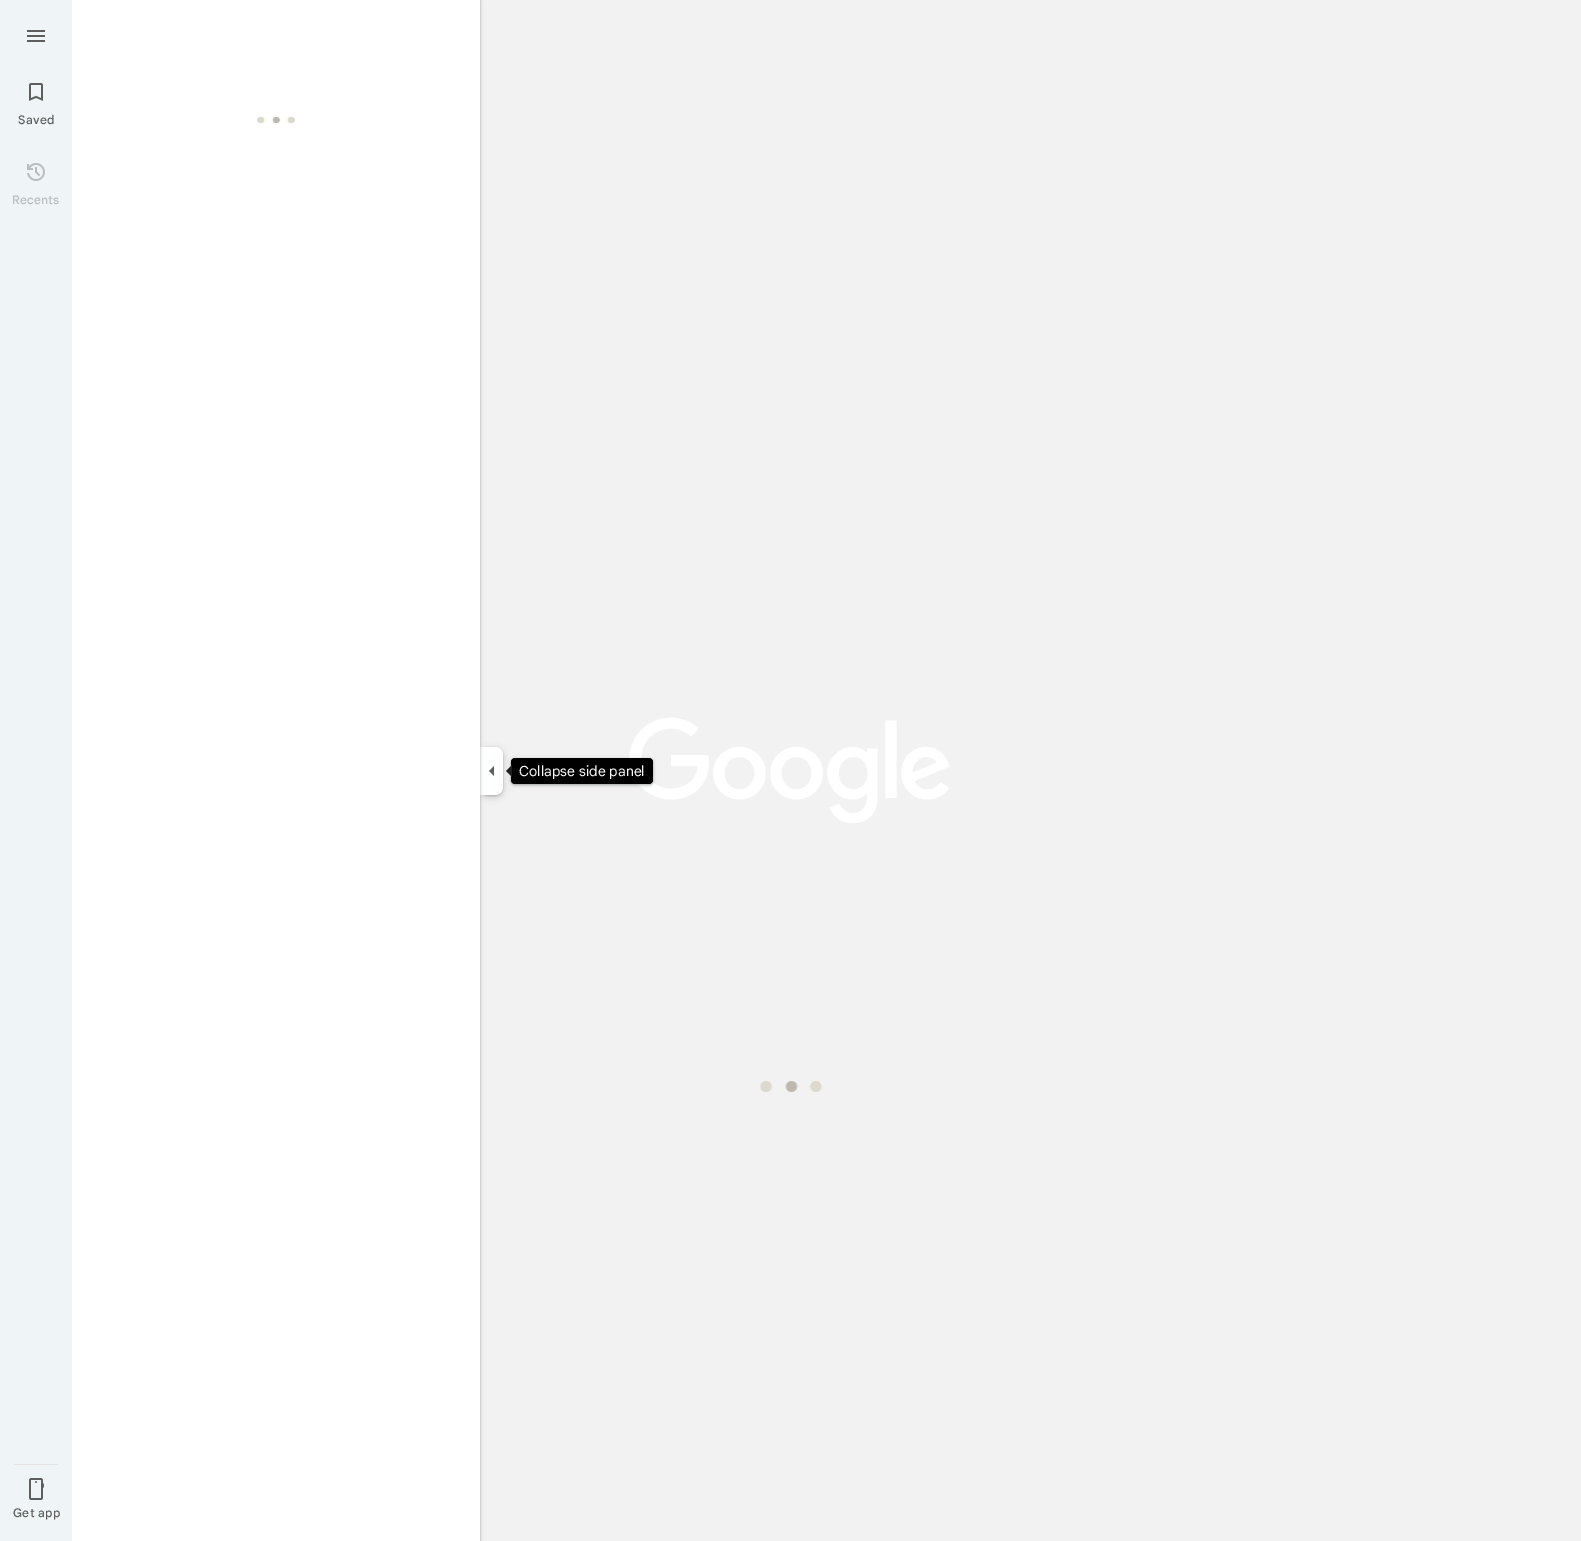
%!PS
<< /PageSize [1581 1541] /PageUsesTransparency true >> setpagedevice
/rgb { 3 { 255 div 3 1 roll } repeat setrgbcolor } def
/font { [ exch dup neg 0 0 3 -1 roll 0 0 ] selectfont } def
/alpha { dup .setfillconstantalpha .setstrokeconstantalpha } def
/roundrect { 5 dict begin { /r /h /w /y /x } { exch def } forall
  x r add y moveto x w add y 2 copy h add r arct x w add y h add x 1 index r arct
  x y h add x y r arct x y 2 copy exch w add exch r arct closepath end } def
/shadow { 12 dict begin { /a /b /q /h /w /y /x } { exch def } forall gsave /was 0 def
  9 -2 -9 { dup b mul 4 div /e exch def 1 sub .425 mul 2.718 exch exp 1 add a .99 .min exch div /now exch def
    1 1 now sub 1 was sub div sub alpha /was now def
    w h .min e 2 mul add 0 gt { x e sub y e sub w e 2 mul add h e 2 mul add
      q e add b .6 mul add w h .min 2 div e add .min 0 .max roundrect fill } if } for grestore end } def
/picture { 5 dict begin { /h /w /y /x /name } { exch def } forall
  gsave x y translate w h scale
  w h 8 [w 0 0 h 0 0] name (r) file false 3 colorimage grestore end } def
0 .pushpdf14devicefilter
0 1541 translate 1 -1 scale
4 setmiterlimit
242 242 242 rgb
0 0 1581 1541 rectfill
60 64 67 rgb
478 747 27 52 10 3 0.15 shadow
480 748 23 48 8 1 0.3 shadow
255 255 255 rgb
480 747 moveto 495 747 lineto 499.5 747 503 750.5 503 755 curveto 503 787 lineto 503 791.5 499.5 795 495 795 curveto 480 795 lineto closepath fill
60 64 67 rgb
71 0 410 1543 0 1.5 0.15 shadow
72 1 408 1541 0 1 0.3 shadow
239 245 246 rgb
0 0 72 1541 rectfill
(img/1.rgb) 27 30 18 12 picture
(img/2.rgb) 29 83 14 18 picture
(img/3.rgb) 27 163 18 18 picture
227 227 227 rgb
14 1464 44 1 rectfill
(img/4.rgb) 29 1478 15 22 picture
255 255 255 rgb
72 0 408 1541 rectfill
(img/5.rgb) 257 116 38 8 picture
94 94 94 rgb
494 776 moveto 489 771 lineto 494 766 lineto closepath fill
(img/6.rgb) 629 717 321 106 picture
60 64 67 rgb
510 758 144 28 5 1.5 0.15 shadow
511 759 142 26 4 1 0.3 shadow
0 0 0 rgb
511 758 142 26 4 roundrect fill
31 31 31 rgb
512 765 moveto 512 777 lineto 506 771 lineto closepath fill
(img/7.rgb) 760 1081 62 11 picture
/GoogleSans-Medium 12 font
94 94 94 rgb
18 124 moveto 0.25 0 (Saved) ashow
184 188 188 rgb
12 204 moveto 0.25 0 (Recents) ashow
94 94 94 rgb
13 1517 moveto 0.25 0 (Get app) ashow
/GoogleSans-Regular 14 font
255 255 255 rgb
519 776 moveto 0.1 0 (Collapse side panel) ashow
.poppdf14devicefilter showpage
